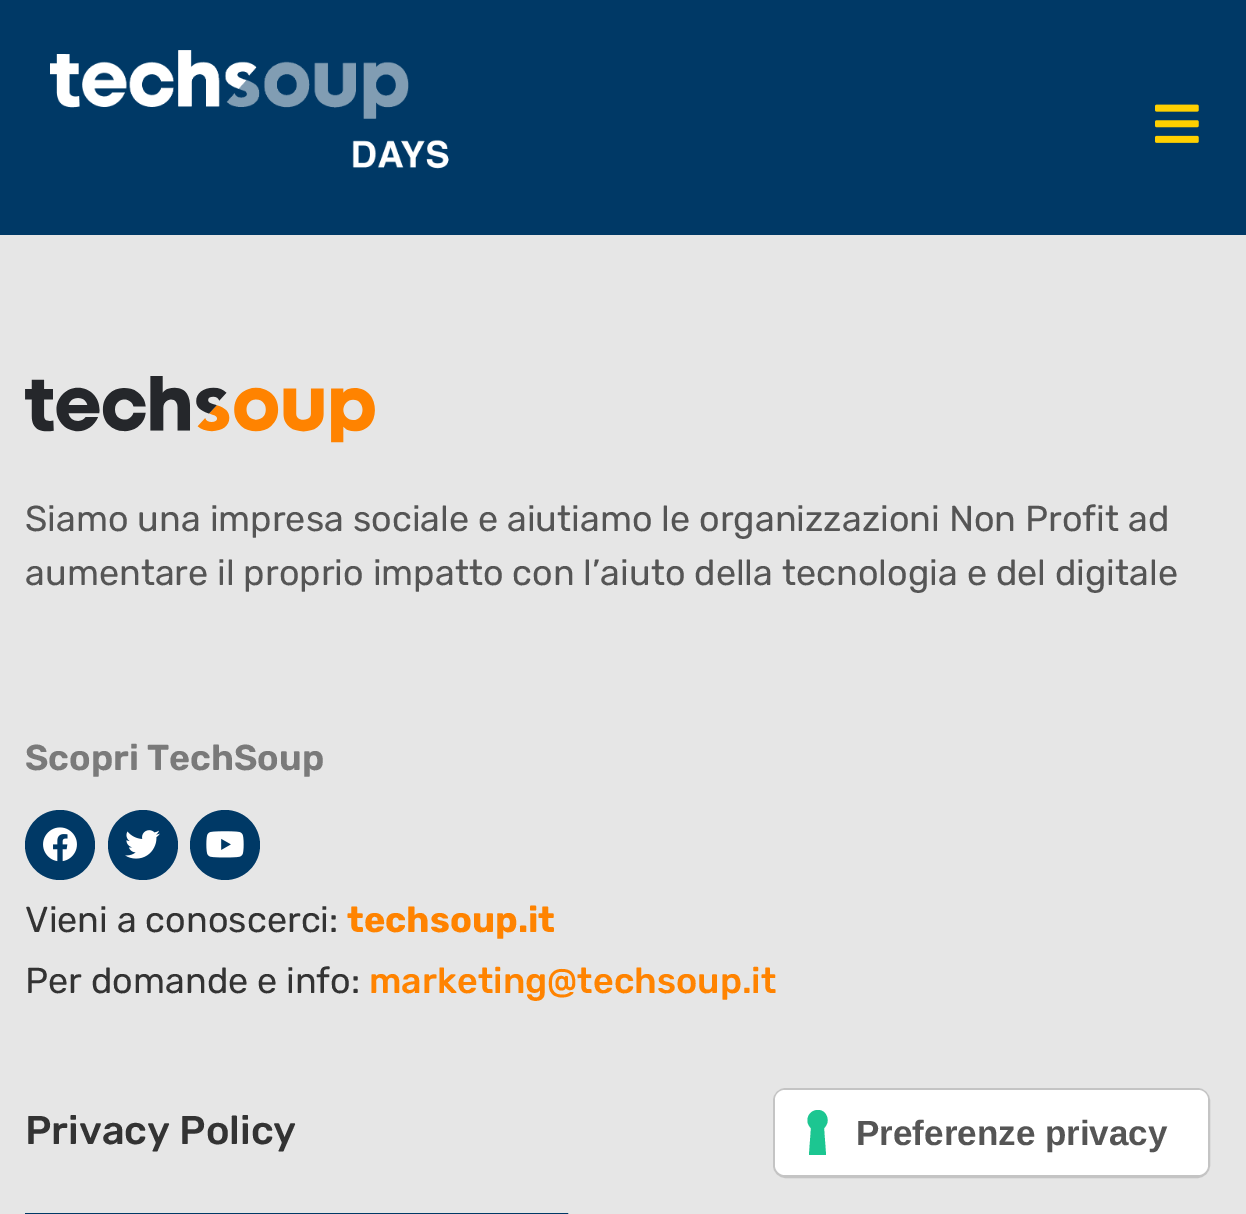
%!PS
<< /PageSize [1246 1214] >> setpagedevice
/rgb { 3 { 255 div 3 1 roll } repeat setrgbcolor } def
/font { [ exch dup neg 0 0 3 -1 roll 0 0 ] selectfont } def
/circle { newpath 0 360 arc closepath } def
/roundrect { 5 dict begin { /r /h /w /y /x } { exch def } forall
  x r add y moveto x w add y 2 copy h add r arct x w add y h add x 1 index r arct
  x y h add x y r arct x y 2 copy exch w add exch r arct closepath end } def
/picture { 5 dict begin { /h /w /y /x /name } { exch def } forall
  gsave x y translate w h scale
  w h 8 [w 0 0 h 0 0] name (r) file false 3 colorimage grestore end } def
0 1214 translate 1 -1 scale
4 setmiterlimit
230 230 230 rgb
0 0 1246 1214 rectfill
0 57 102 rgb
0 0 1246 235 rectfill
(img/1.rgb) 50 50 399 119 picture
(img/2.rgb) 1155 104 44 39 picture
(img/3.rgb) 25 376 350 67 picture
60 845 35 circle fill
(img/4.rgb) 43 827 34 35 picture
143 845 35 circle fill
(img/5.rgb) 125 830 35 29 picture
225 845 35 circle fill
(img/6.rgb) 206 831 38 27 picture
5 setlinewidth
27.5 1215.5 538 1 rectstroke
196 196 196 rgb
3 setlinewidth
774.5 1089.5 434 87 11.5 roundrect stroke
255 255 255 rgb
775 1090 433 85 10 roundrect fill
28 198 145 rgb
818 1110 moveto 827 1110 831 1122 824 1128 curveto 826 1155 lineto 809 1155 lineto 811 1128 lineto 804 1122 808 1110 818 1110 curveto closepath eofill
/Rubik-Regular 36 font
85 85 85 rgb
25 531 moveto (Siamo una impresa sociale e aiutiamo le organizzazioni Non Profit ad) show
25 585 moveto (aumentare il proprio impatto con l’aiuto della tecnologia e del digitale) show
/Rubik-SemiBold 36 font
122 122 122 rgb
25 770 moveto (Scopri TechSoup) show
/Rubik-Regular 36 font
51 51 51 rgb
25 932 moveto (Vieni a conoscerci:) show
/Rubik-Bold 36 font
255 131 0 rgb
347 932 moveto (techsoup.it) show
/Rubik-Regular 36 font
51 51 51 rgb
25 993 moveto (Per domande e info:) show
/Rubik-Medium 36 font
255 131 0 rgb
369 993 moveto (marketing@techsoup.it) show
/Rubik-Medium 40 font
51 51 51 rgb
25 1144 moveto (Privacy Policy) show
/LiberationSans-Bold 35 font
85 85 85 rgb
856 1145 moveto (Preferenze privacy) show
showpage
